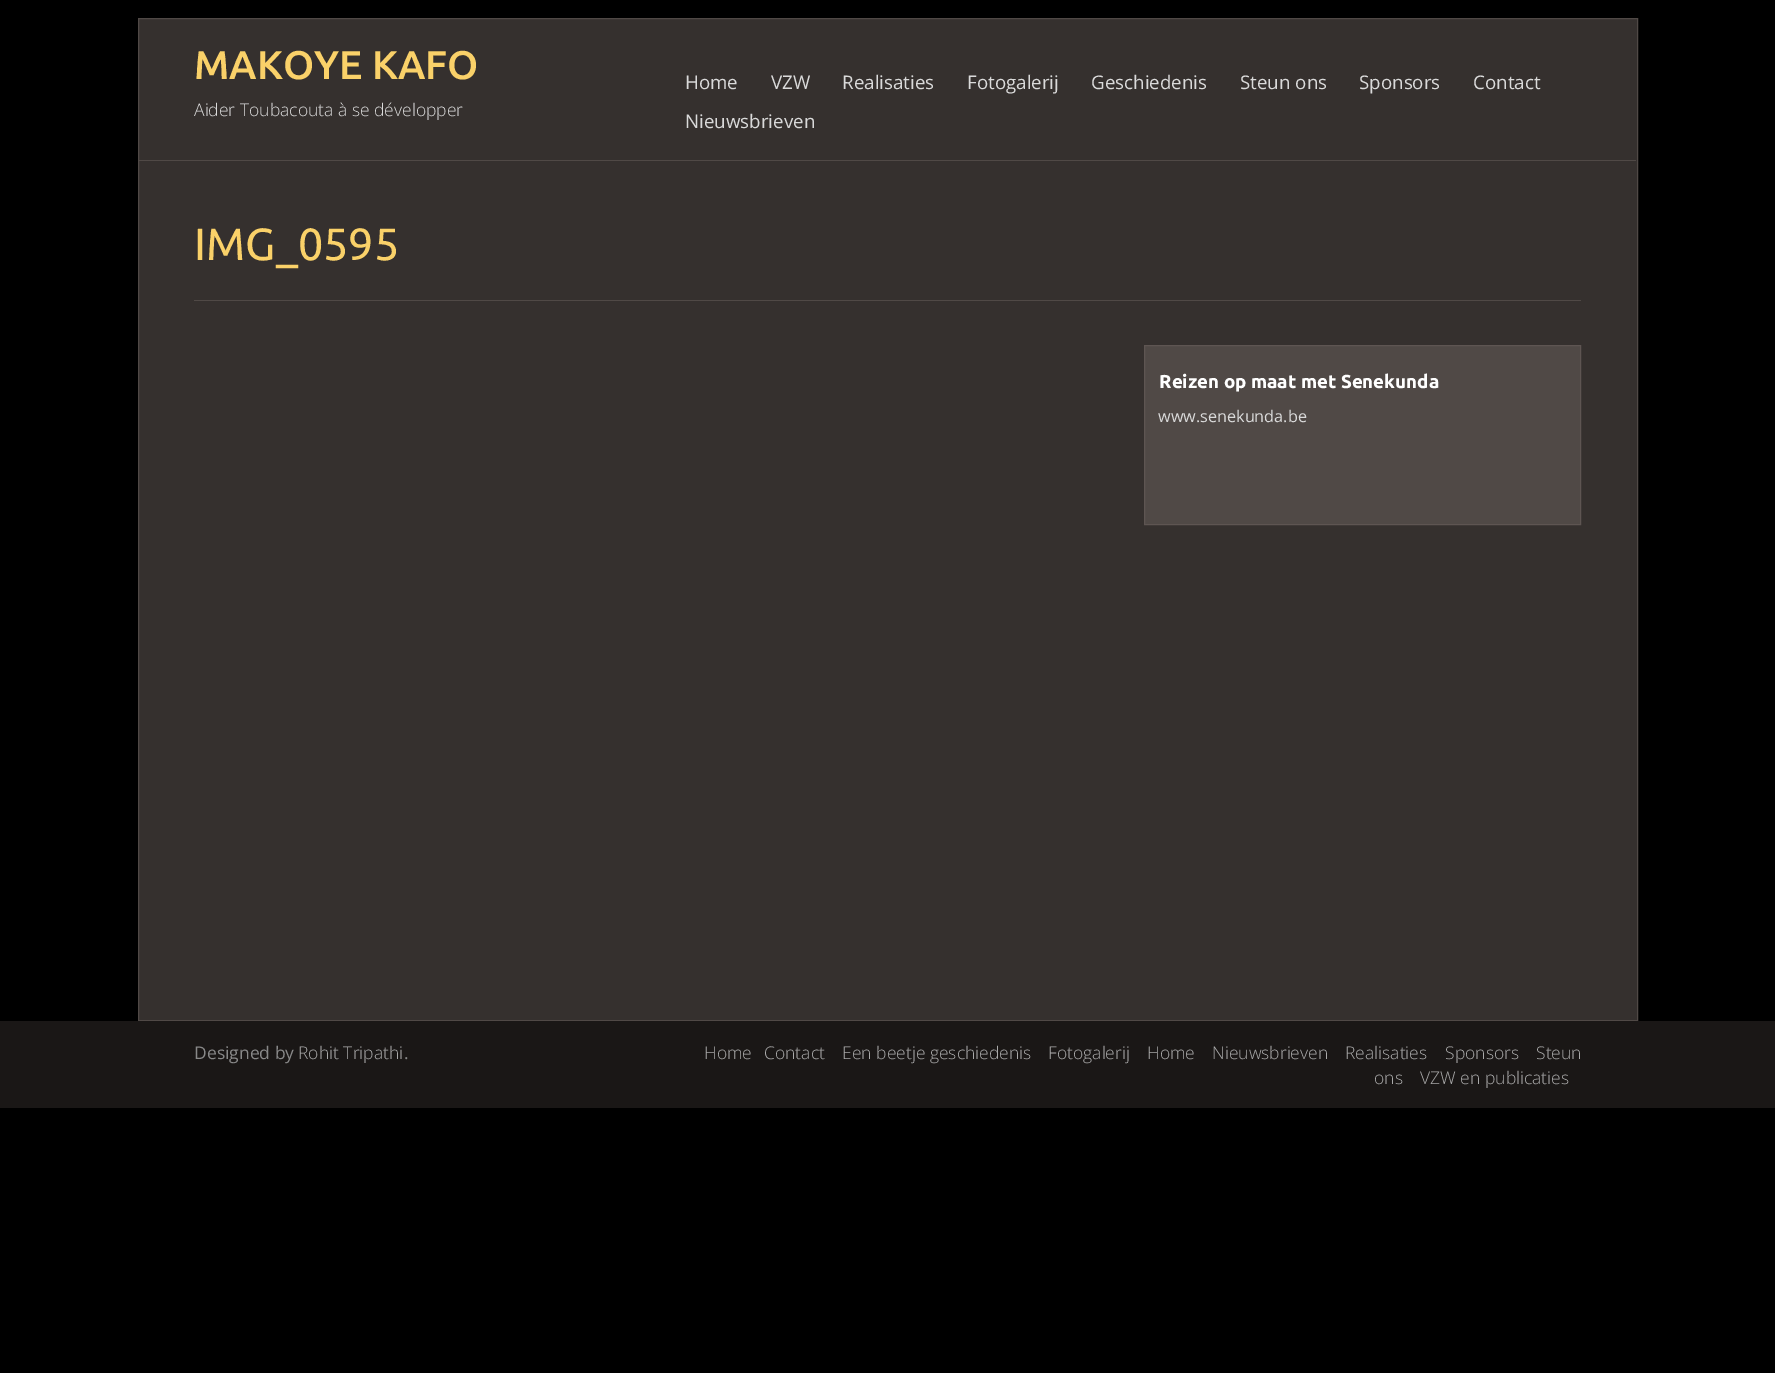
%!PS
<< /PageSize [1775 1373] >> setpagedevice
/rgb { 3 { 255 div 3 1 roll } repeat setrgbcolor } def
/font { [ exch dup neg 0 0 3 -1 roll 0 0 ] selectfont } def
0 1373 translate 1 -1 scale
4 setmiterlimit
0 0 0 rgb
0 0 1775 1373 rectfill
53 48 46 rgb
138.5 18.5 moveto 1637.5 18.5 lineto 1637.5 1020.5 lineto 138.5 1020.5 lineto closepath gsave fill grestore
80 73 70 rgb
stroke
139 160 1497 1 rectfill
194 300 1387 1 rectfill
1144.5 345.5 moveto 1580.5 345.5 lineto 1580.5 524.5 lineto 1144.5 524.5 lineto closepath gsave fill grestore
94 85 82 rgb
stroke
26 23 22 rgb
0 1021 1775 87 rectfill
/Ubuntu-Medium 40 font
250 209 105 rgb
194 79 moveto (MAKOYE KAFO) show
/OpenSans-Light 17.5 font
218 218 218 rgb
194 116 moveto (Aider Toubacouta à se développer) show
/OpenSans-Regular 18.75 font
[
  [(Home) 685 89]
  [(VZW) 771 89]
  [(Realisaties) 842 89]
  [(Fotogalerij) 967 89]
  [(Geschiedenis) 1091 89]
  [(Steun ons) 1240 89]
  [(Sponsors) 1359 89]
  [(Contact) 1473 89]
  [(Nieuwsbrieven) 685 128]
] { aload pop moveto show } forall
/Ubuntu-Regular 45 font
250 209 105 rgb
194 260 moveto (IMG_0595) show
/Ubuntu-Bold 18.75 font
255 255 255 rgb
1159 388 moveto (Reizen op maat met Senekunda) show
/OpenSans-Regular 16.25 font
218 218 218 rgb
1158 422 moveto (www.senekunda.be) show
/OpenSans-Regular 17.5 font
136 136 136 rgb
194 1059 moveto (Designed by) show
/OpenSans-Light 17.5 font
170 170 170 rgb
298 1059 moveto (Rohit Tripathi) show
/OpenSans-Regular 17.5 font
136 136 136 rgb
404 1059 moveto (.) show
/OpenSans-Light 17.5 font
170 170 170 rgb
[
  [(Home) 704 1059]
  [(Contact) 764 1059]
  [(Een beetje geschiedenis) 842 1059]
  [(Fotogalerij) 1048 1059]
  [(Home) 1147 1059]
  [(Nieuwsbrieven) 1212 1059]
  [(Realisaties) 1345 1059]
  [(Sponsors) 1445 1059]
  [(Steun) 1536 1059]
  [(ons) 1374 1084]
  [(VZW en publicaties) 1420 1084]
] { aload pop moveto show } forall
showpage
